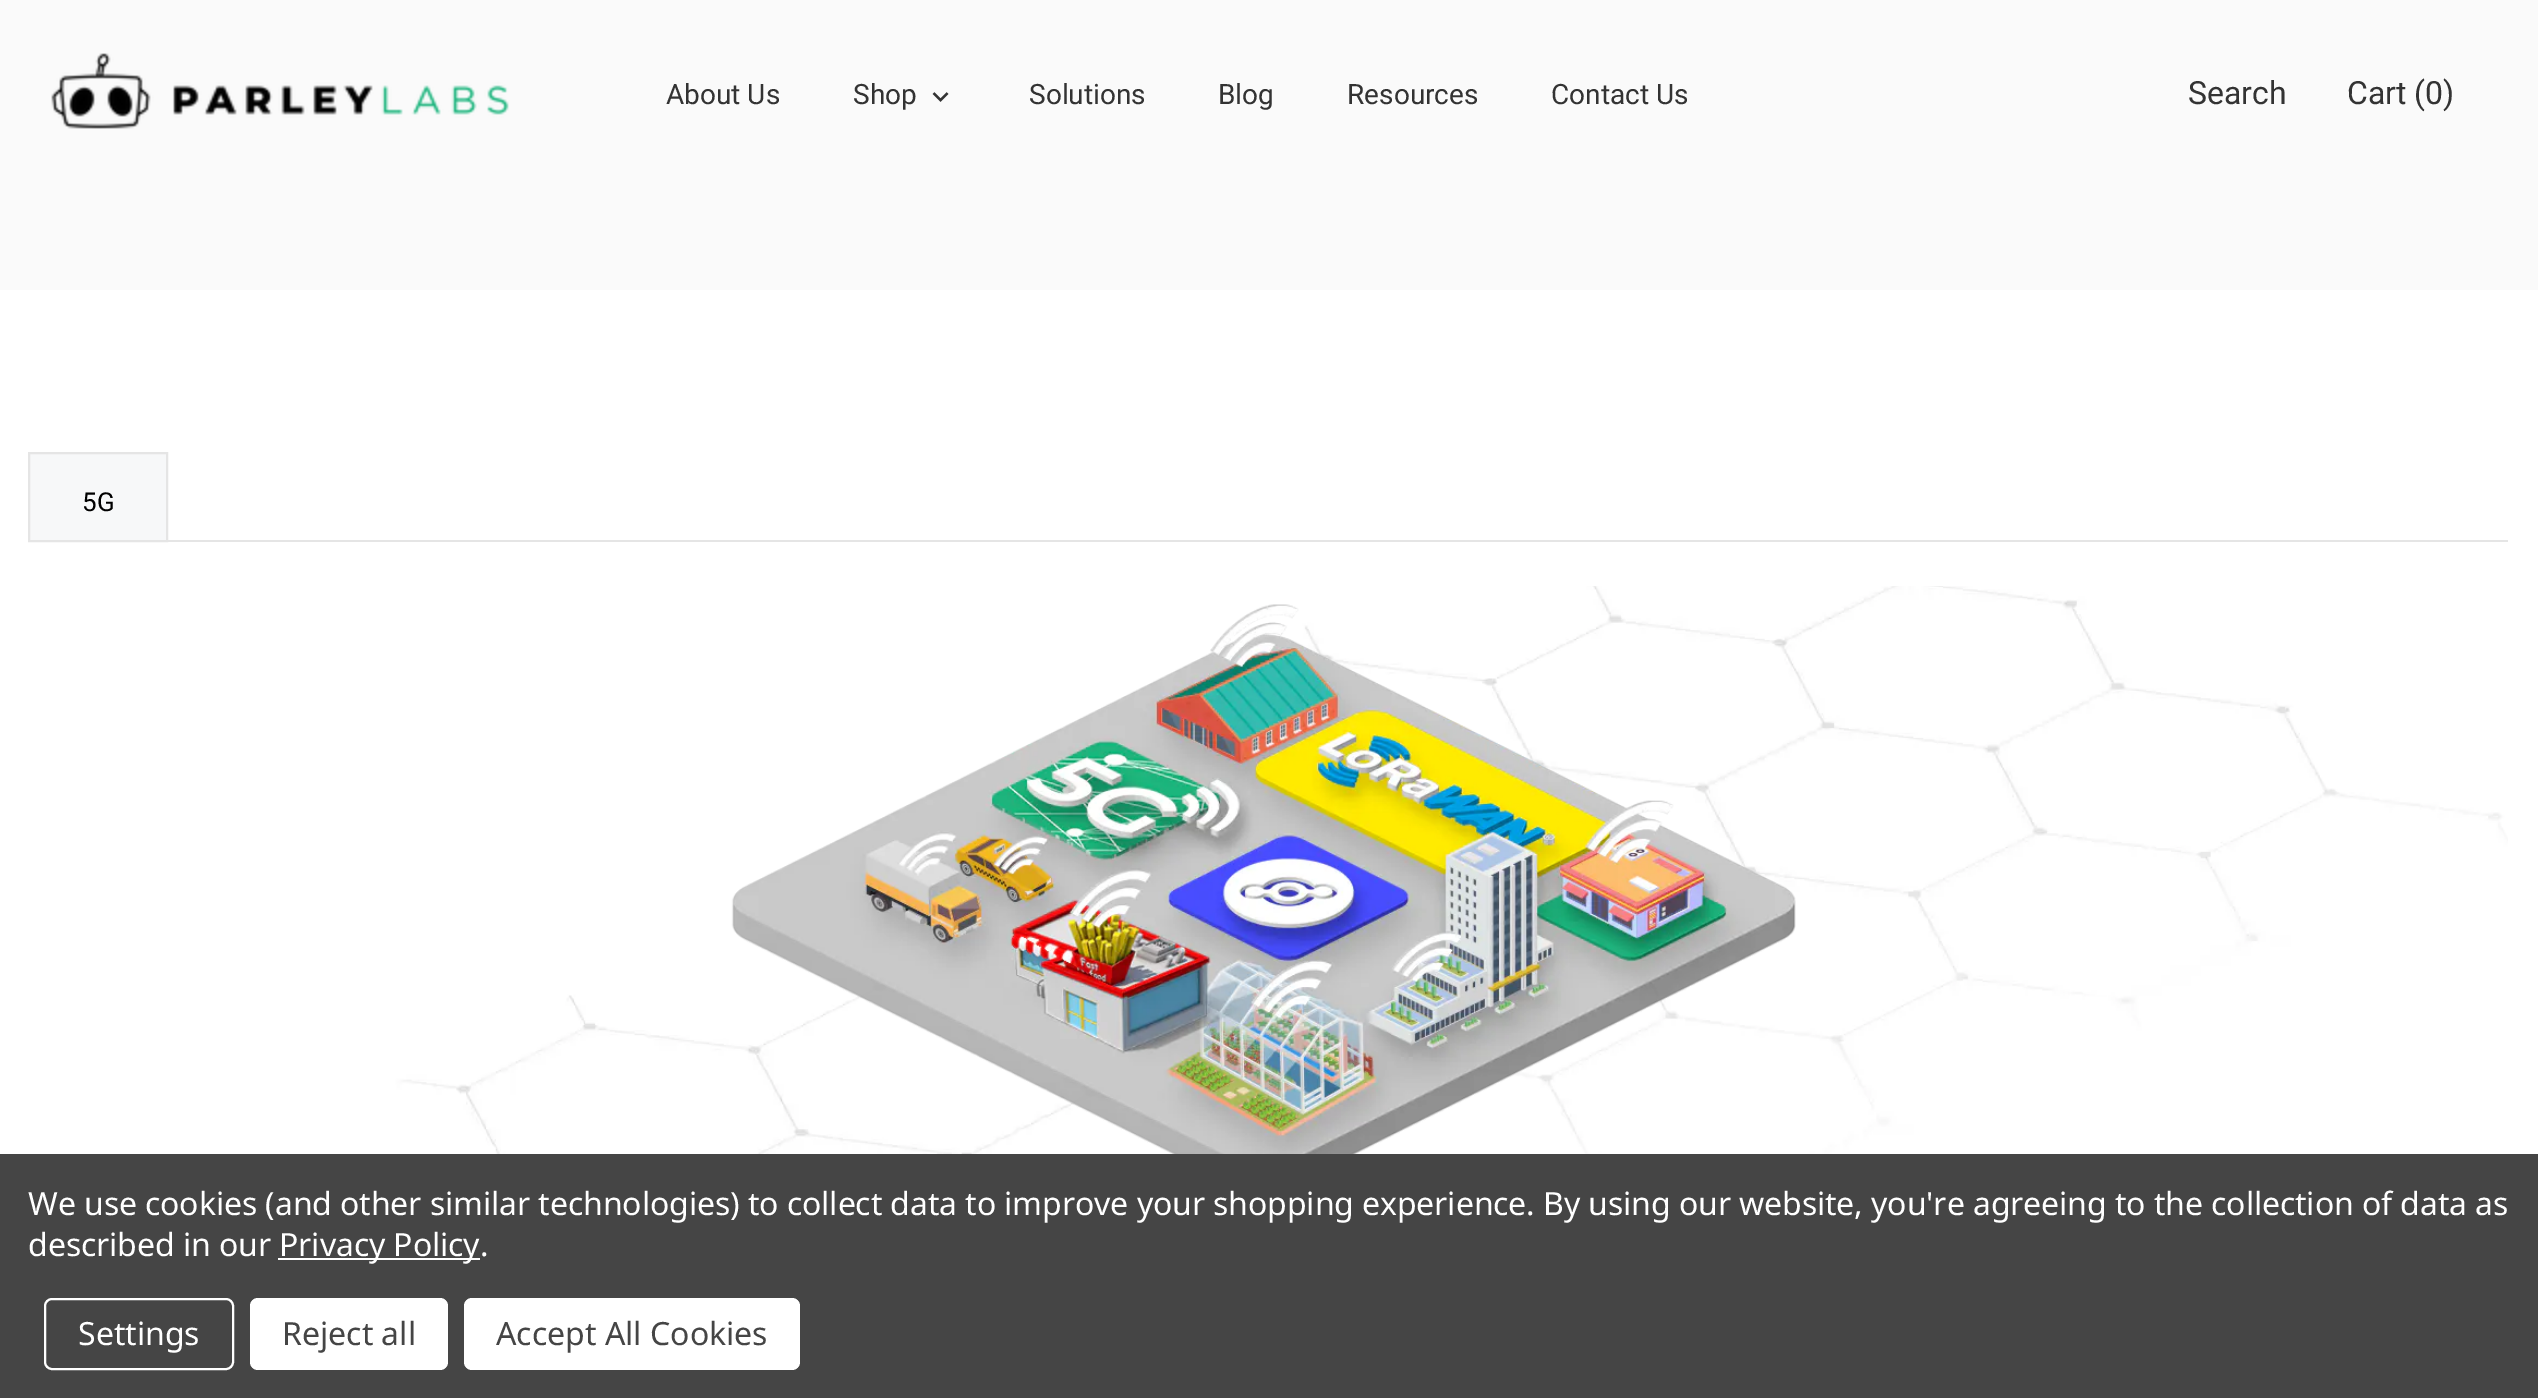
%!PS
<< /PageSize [2538 1398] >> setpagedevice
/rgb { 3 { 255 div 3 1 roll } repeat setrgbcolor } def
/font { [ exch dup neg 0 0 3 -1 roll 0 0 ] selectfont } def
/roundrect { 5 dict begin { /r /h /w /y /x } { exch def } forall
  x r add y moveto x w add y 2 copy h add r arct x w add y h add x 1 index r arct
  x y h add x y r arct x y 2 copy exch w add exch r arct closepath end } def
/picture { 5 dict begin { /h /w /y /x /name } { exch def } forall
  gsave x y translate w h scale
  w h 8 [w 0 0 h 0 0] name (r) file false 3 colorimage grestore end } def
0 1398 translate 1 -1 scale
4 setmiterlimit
255 255 255 rgb
0 0 2538 1398 rectfill
250 250 250 rgb
0 0 2538 190 rectfill
(img/1.rgb) 51 53 458 76 picture
(img/2.rgb) 932 92 17 10 picture
0 190 30 100 rectfill
30 190 2508 100 rectfill
247 248 249 rgb
29 453 moveto 167 453 lineto 167 541 lineto 29 541 lineto closepath gsave fill grestore
229 229 229 rgb
2 setlinewidth
stroke
168 540 2340 2 rectfill
(img/3.rgb) 33 586 2475 568 picture
(img/4.rgb) 731 604 1065 550 picture
69 69 69 rgb
0 1154 2538 244 rectfill
255 255 255 rgb
278 1258 202 2 rectfill
45 1299 188 70 7 roundrect stroke
250 1298 198 72 8 roundrect fill
464 1298 336 72 8 roundrect fill
/Roboto-Regular 28 font
51 51 51 rgb
[
  [(About Us) 666 104]
  [(Shop) 853 104]
  [(Solutions) 1029 104]
  [(Blog) 1218 104]
  [(Resources) 1347 104]
  [(Contact Us) 1551 104]
] { aload pop moveto show } forall
/Roboto-Regular 32 font
2188 104 moveto (Search) show
2347 104 moveto (Cart \(0\)) show
/Roboto-Regular 26 font
0 0 0 rgb
82 511 moveto (5G) show
/NotoSans-Regular 32 font
255 255 255 rgb
28 1215 moveto -0.1 0 (We use cookies \(and other similar technologies\) to collect data to improve your shopping experience. By using our website, you're agreeing to the collection of data as) ashow
28 1256 moveto -0.1 0 (described in our) ashow
279 1256 moveto -0.1 0 (Privacy Policy.) ashow
78 1345 moveto (Settings) show
69 69 69 rgb
282 1345 moveto (Reject all) show
496 1345 moveto (Accept All Cookies) show
showpage
